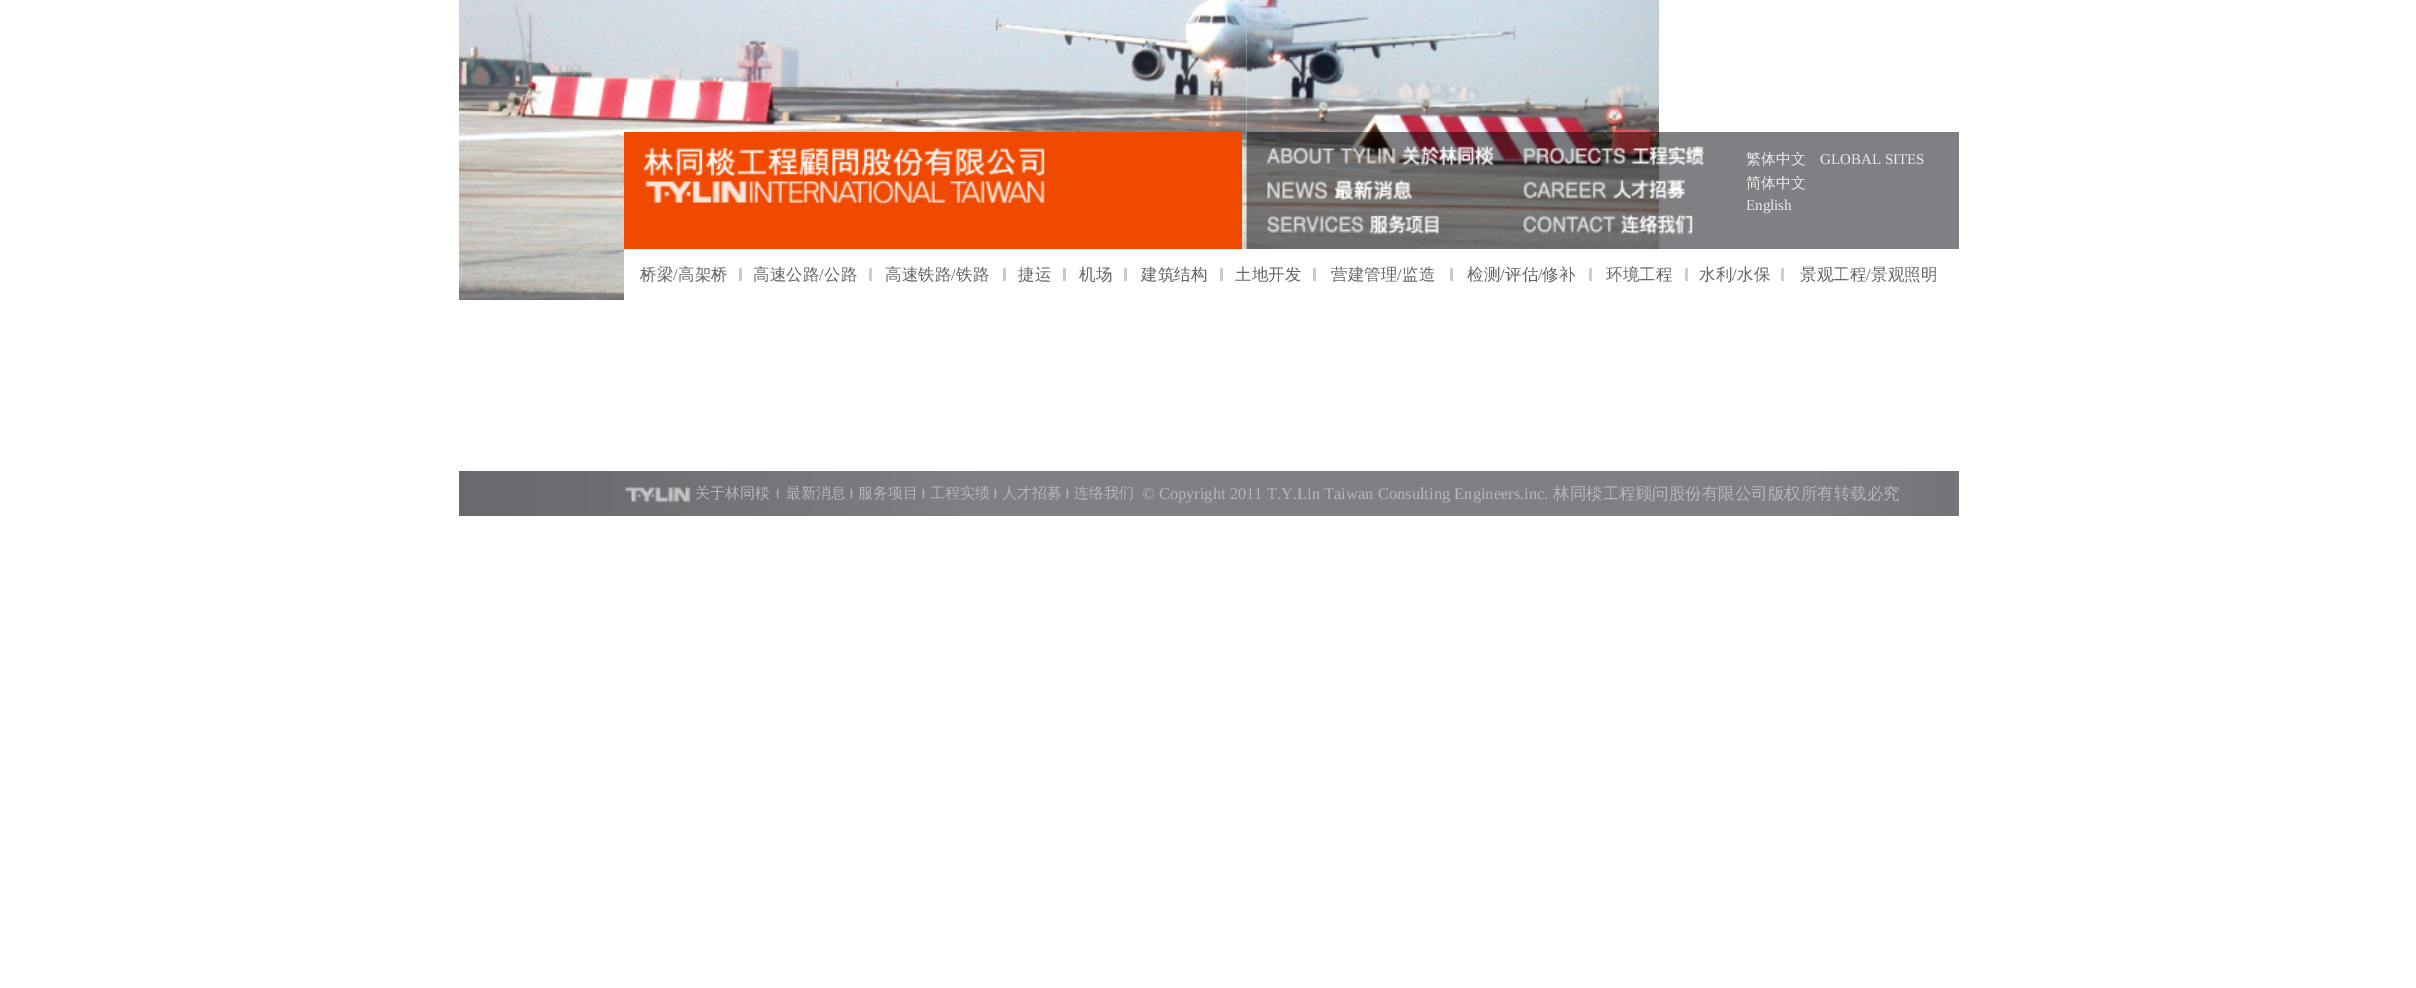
%!PS
<< /PageSize [2416 988] >> setpagedevice
/rgb { 3 { 255 div 3 1 roll } repeat setrgbcolor } def
/font { [ exch dup neg 0 0 3 -1 roll 0 0 ] selectfont } def
/picture { 5 dict begin { /h /w /y /x /name } { exch def } forall
  gsave x y translate w h scale
  w h 8 [w 0 0 h 0 0] name (r) file false 3 colorimage grestore end } def
0 988 translate 1 -1 scale
4 setmiterlimit
255 255 255 rgb
0 0 2416 988 rectfill
(img/1.rgb) 459 0 165 300 picture
(img/2.rgb) 624 0 623 132 picture
(img/3.rgb) 1246 0 413 132 picture
(img/4.rgb) 1242 132 5 117 picture
(img/5.rgb) 624 132 618 117 picture
(img/6.rgb) 1246 132 713 117 picture
(img/7.rgb) 1266 145 228 21 picture
(img/8.rgb) 1523 145 182 21 picture
(img/9.rgb) 1267 179 145 21 picture
(img/10.rgb) 1522 179 164 21 picture
(img/11.rgb) 1267 214 172 21 picture
(img/12.rgb) 1522 214 171 21 picture
[
  [739 268 3 13 199 200 201]
  [869 268 3 13 203 204 205]
  [1003 268 3 13 199 200 201]
  [1063 268 3 13 199 200 201]
  [1124 268 3 13 203 204 205]
  [1220 268 3 13 203 204 205]
  [1313 268 3 13 203 204 205]
  [1450 268 3 13 199 200 201]
  [1589 268 3 13 203 204 205]
  [1685 268 3 13 203 204 205]
  [1781 268 3 13 203 204 205]
] { aload pop rgb rectfill } forall
(img/13.rgb) 459 471 165 45 picture
(img/14.rgb) 624 471 1335 45 picture
(img/15.rgb) 625 487 66 16 picture
(img/16.rgb) 776 488 3 11 picture
(img/17.rgb) 850 488 3 11 picture
(img/18.rgb) 922 488 3 11 picture
(img/19.rgb) 994 488 3 11 picture
(img/19.rgb) 1066 488 3 11 picture
/WenQuanYiZenHei-Medium 15 font
234 234 235 rgb
1746 164 moveto (繁体中文) show
/LiberationSerif-Regular 15 font
1820 164 moveto (GLOBAL SITES) show
/WenQuanYiZenHei-Medium 15 font
1746 188 moveto (简体中文) show
/LiberationSerif-Regular 15 font
1746 210 moveto (English) show
/WenQuanYiZenHei-Medium 16.5 font
101 101 103 rgb
640 280 moveto (桥梁) show
/LiberationSerif-Regular 16.5 font
673 280 moveto (/) show
/WenQuanYiZenHei-Medium 16.5 font
678 280 moveto (高架桥) show
753 280 moveto (高速公路) show
/LiberationSerif-Regular 16.5 font
819 280 moveto (/) show
/WenQuanYiZenHei-Medium 16.5 font
824 280 moveto (公路) show
885 280 moveto (高速铁路) show
/LiberationSerif-Regular 16.5 font
951 280 moveto (/) show
/WenQuanYiZenHei-Medium 16.5 font
[
  [(铁路) 956 280]
  [(捷运) 1018 280]
  [(机场) 1079 280]
  [(建筑结构) 1141 280]
  [(土地开发) 1235 280]
  [(营建管理) 1331 280]
] { aload pop moveto show } forall
/LiberationSerif-Regular 16.5 font
1397 280 moveto (/) show
/WenQuanYiZenHei-Medium 16.5 font
1402 280 moveto (监造) show
1467 280 moveto (检测) show
/LiberationSerif-Regular 16.5 font
1500 280 moveto (/) show
/WenQuanYiZenHei-Medium 16.5 font
1505 280 moveto (评估) show
/LiberationSerif-Regular 16.5 font
1538 280 moveto (/) show
/WenQuanYiZenHei-Medium 16.5 font
[
  [(修补) 1542 280]
  [(环境工程) 1606 280]
  [(水利) 1699 280]
] { aload pop moveto show } forall
/LiberationSerif-Regular 16.5 font
1732 280 moveto (/) show
/WenQuanYiZenHei-Medium 16.5 font
1737 280 moveto (水保) show
1800 280 moveto (景观工程) show
/LiberationSerif-Regular 16.5 font
1866 280 moveto (/) show
/WenQuanYiZenHei-Medium 16.5 font
1871 280 moveto (景观照明) show
/WenQuanYiZenHei-Medium 15 font
181 183 185 rgb
[
  [(关于林同棪) 695 498]
  [(最新消息) 786 498]
  [(服务项目) 858 498]
  [(工程实绩) 930 498]
  [(人才招募) 1002 498]
  [(连络我们) 1074 498]
] { aload pop moveto show } forall
/LiberationSerif-Regular 16.5 font
1142 499 moveto (© Copyright 2011 T.Y.Lin Taiwan Consulting Engineers.inc.) show
/WenQuanYiZenHei-Medium 16.5 font
1553 499 moveto (林同棪工程顾问股份有限公司版权所有转载必究) show
showpage
